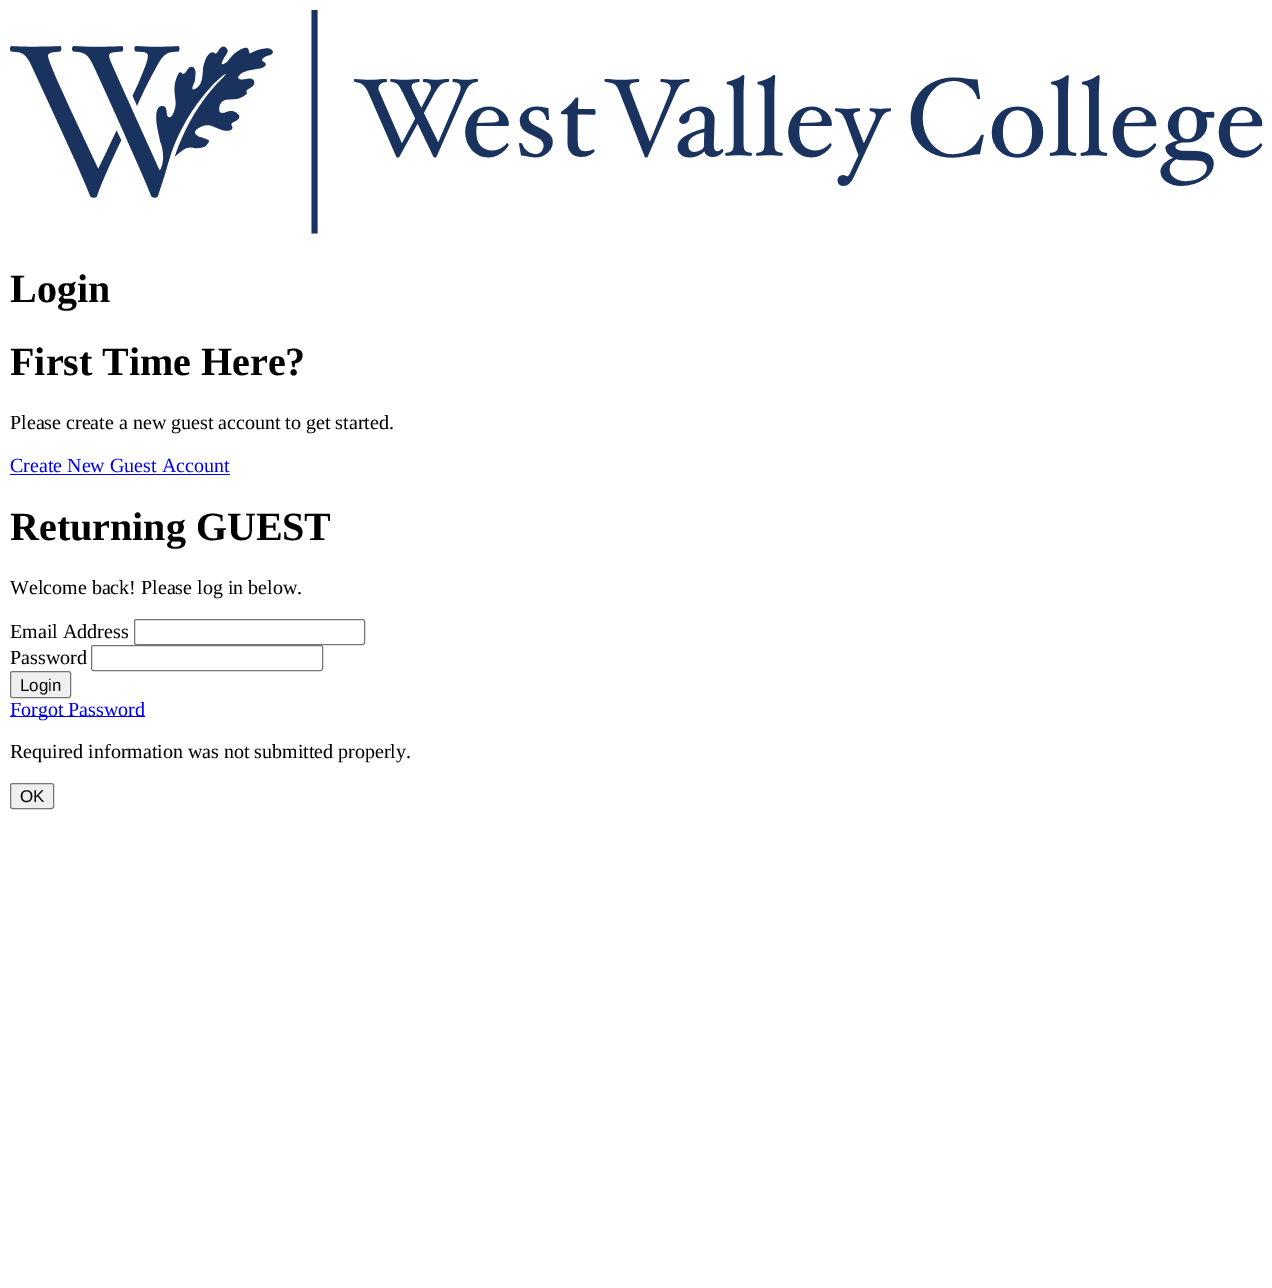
%!PS
<< /PageSize [1272 1288] >> setpagedevice
/rgb { 3 { 255 div 3 1 roll } repeat setrgbcolor } def
/font { [ exch dup neg 0 0 3 -1 roll 0 0 ] selectfont } def
/roundrect { 5 dict begin { /r /h /w /y /x } { exch def } forall
  x r add y moveto x w add y 2 copy h add r arct x w add y h add x 1 index r arct
  x y h add x y r arct x y 2 copy exch w add exch r arct closepath end } def
/picture { 5 dict begin { /h /w /y /x /name } { exch def } forall
  gsave x y translate w h scale
  w h 8 [w 0 0 h 0 0] name (r) file false 3 colorimage grestore end } def
0 1288 translate 1 -1 scale
4 setmiterlimit
255 255 255 rgb
0 0 1272 1288 rectfill
(img/1.rgb) 10 10 1253 224 picture
0 0 238 rgb
10 474 220 1 rectfill
118 118 118 rgb
134.5 619.5 230 25 2 roundrect stroke
91.5 645.5 231 25 2 roundrect stroke
239 239 239 rgb
10.5 671.5 60 26 2 roundrect gsave fill grestore
118 118 118 rgb
stroke
0 0 238 rgb
10 716 135 1 rectfill
239 239 239 rgb
10.5 783.5 43 25 2 roundrect gsave fill grestore
118 118 118 rgb
stroke
/LiberationSerif-Bold 40 font
0 0 0 rgb
10 302 moveto (Login) show
10 375 moveto (First Time Here?) show
/LiberationSerif-Regular 20 font
10 429 moveto (Please create a new guest account to get started.) show
0 0 238 rgb
10 472 moveto (Create New Guest Account) show
/LiberationSerif-Bold 40 font
0 0 0 rgb
10 540 moveto (Returning GUEST) show
/LiberationSerif-Regular 20 font
[
  [(Welcome back! Please log in below.) 10 594]
  [(Email Address) 10 638]
  [(Password) 10 664]
] { aload pop moveto show } forall
/LiberationSans-Regular 17 font
20 691 moveto (Login) show
/LiberationSerif-Regular 20 font
0 0 238 rgb
10 716 moveto (Forgot Password) show
0 0 0 rgb
10 758 moveto (Required information was not submitted properly.) show
/LiberationSans-Regular 17 font
20 802 moveto (OK) show
showpage
